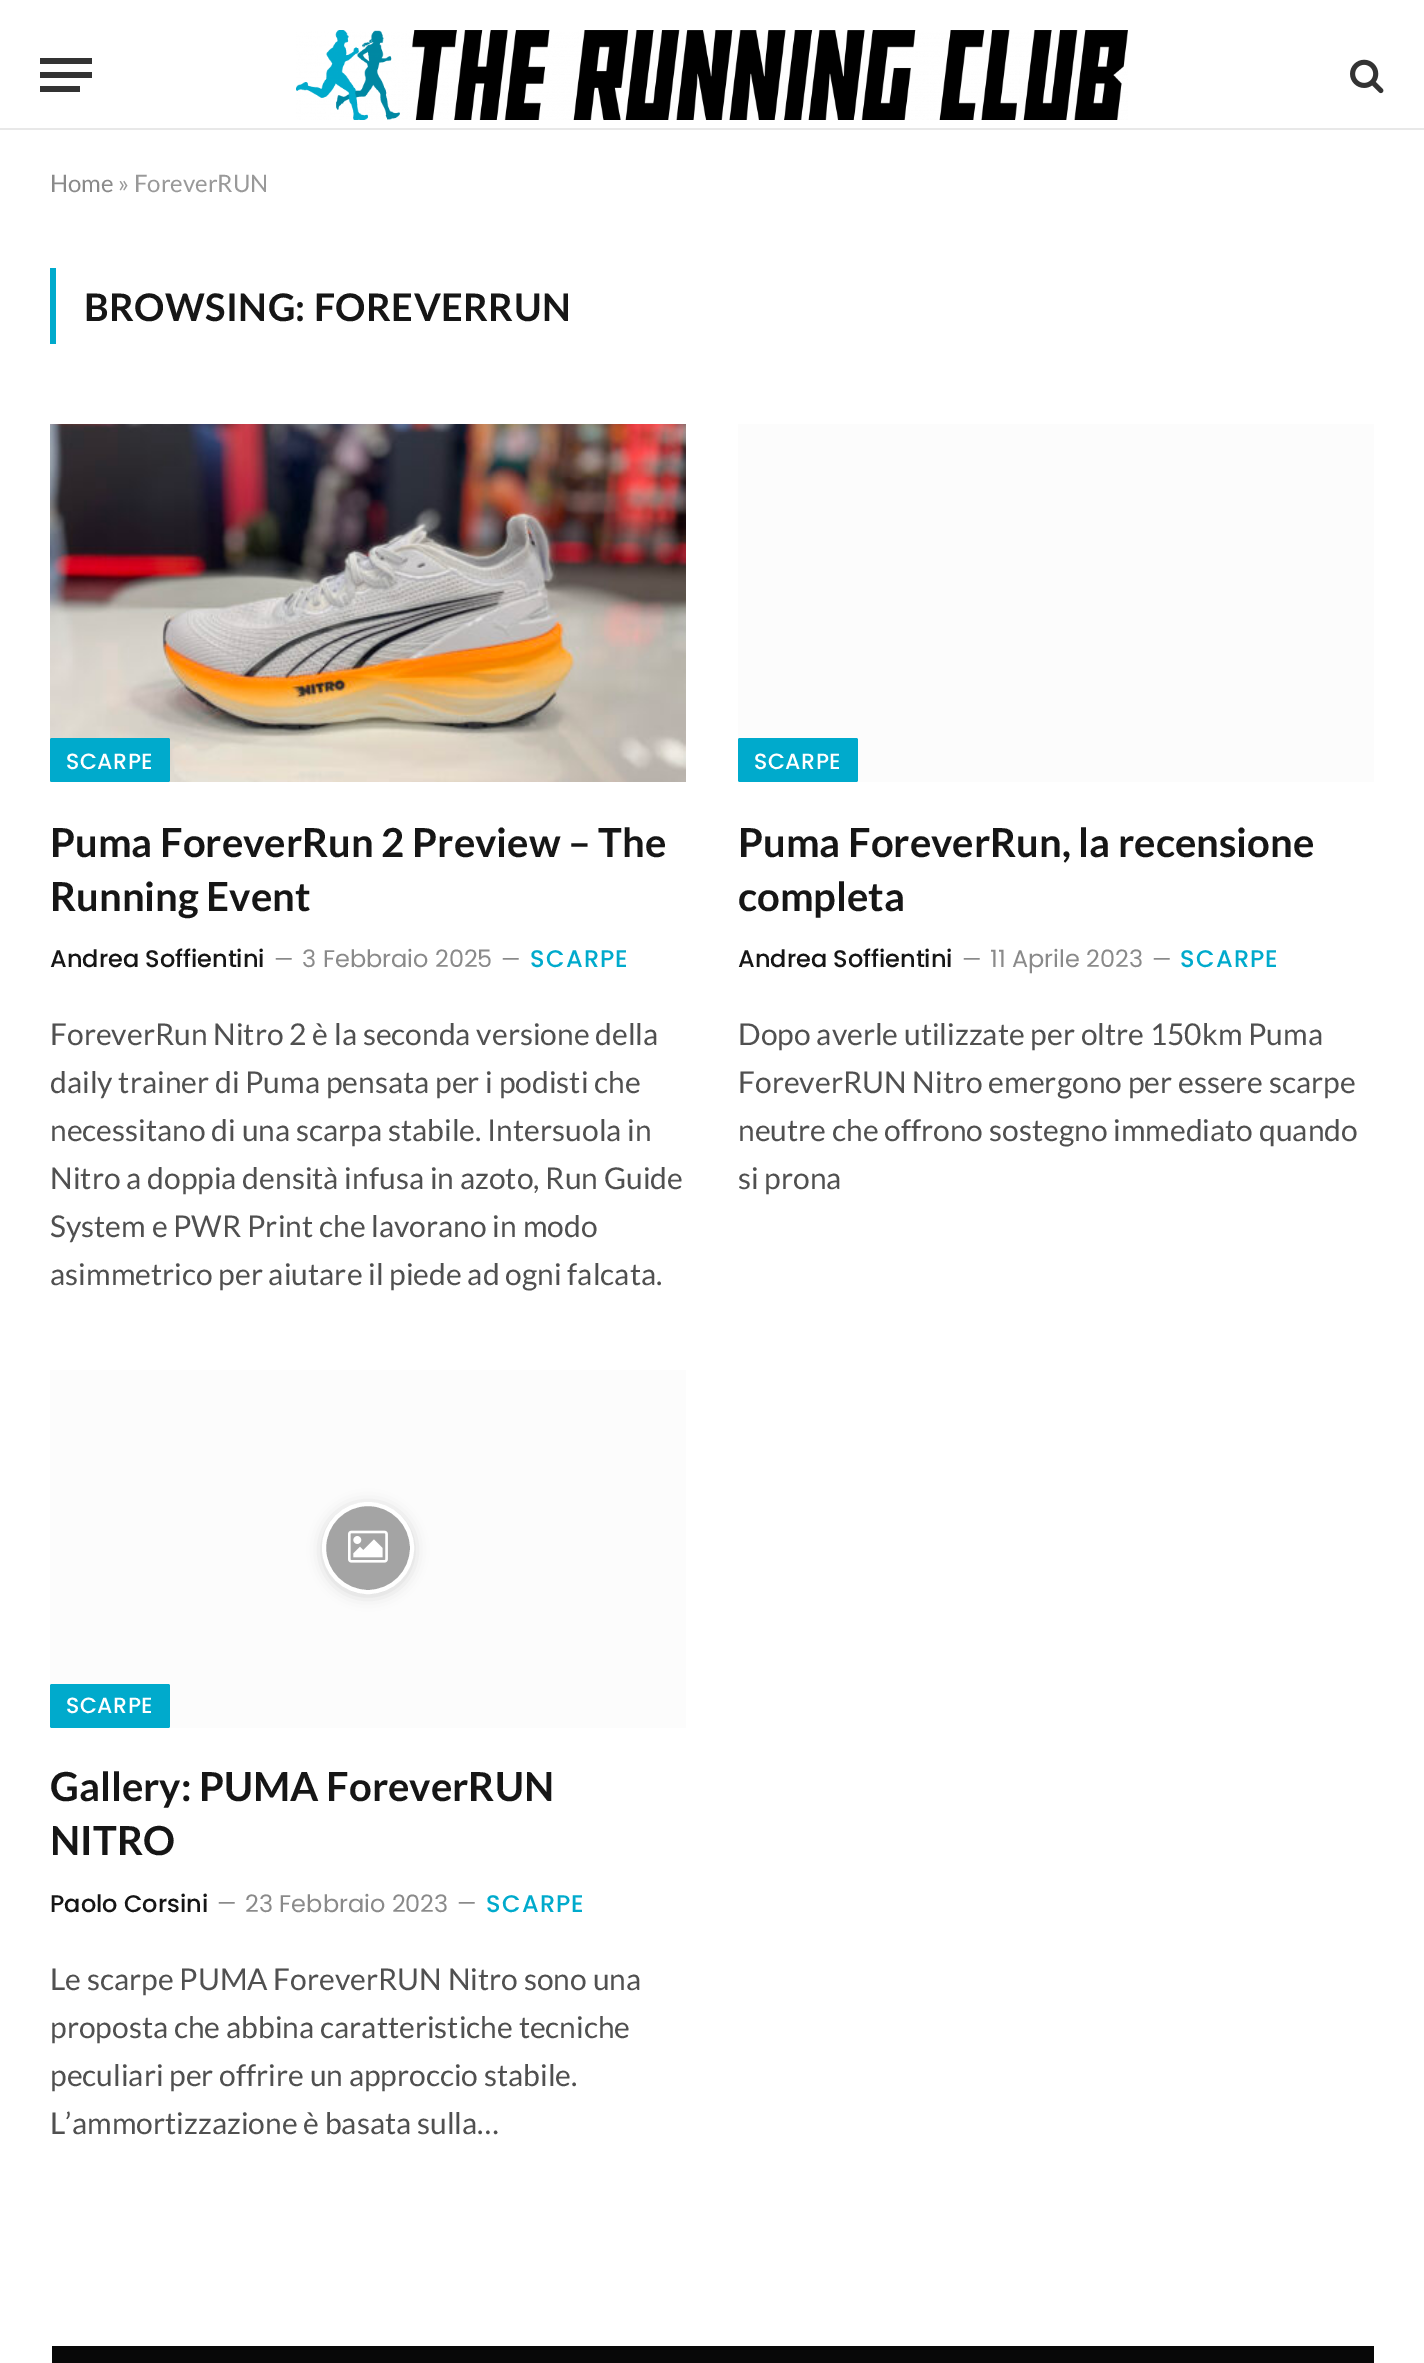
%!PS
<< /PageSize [1424 2363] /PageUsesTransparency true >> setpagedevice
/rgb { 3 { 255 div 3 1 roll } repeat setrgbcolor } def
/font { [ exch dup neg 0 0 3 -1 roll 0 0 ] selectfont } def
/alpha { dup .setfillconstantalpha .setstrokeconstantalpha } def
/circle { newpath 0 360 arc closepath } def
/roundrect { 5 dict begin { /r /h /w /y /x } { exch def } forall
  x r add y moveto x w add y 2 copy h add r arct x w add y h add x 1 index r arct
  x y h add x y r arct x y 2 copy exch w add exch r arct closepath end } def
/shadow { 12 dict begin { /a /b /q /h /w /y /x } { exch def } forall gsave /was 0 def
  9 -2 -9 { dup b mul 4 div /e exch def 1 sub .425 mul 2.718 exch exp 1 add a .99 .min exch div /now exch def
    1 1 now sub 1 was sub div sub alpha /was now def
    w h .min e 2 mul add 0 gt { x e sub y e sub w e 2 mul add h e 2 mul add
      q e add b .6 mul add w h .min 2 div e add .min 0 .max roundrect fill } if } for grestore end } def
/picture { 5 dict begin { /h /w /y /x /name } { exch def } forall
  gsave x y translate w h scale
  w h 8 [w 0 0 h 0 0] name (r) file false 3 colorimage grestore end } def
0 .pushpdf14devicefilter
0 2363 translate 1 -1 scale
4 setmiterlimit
255 255 255 rgb
0 0 1424 2363 rectfill
[
  [0 128 1424 2 232 232 232]
  [40 86 40 6 51 51 51]
  [40 58 52 6 51 51 51]
  [40 72 52 6 51 51 51]
] { aload pop rgb rectfill } forall
(img/1.rgb) 296 30 832 90 picture
(img/2.rgb) 1350 59 34 35 picture
0 170 204 rgb
50 268 6 76 rectfill
(img/3.rgb) 50 424 636 358 picture
50 738 120 44 2 roundrect fill
252 252 252 rgb
738 424 636 358 rectfill
0 170 204 rgb
738 738 120 44 2 roundrect fill
252 252 252 rgb
50 1370 636 358 rectfill
gsave
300 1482 moveto 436 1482 lineto 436 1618 lineto 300 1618 lineto closepath 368 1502 moveto 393.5 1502 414 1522.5 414 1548 curveto 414 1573.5 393.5 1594 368 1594 curveto 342.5 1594 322 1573.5 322 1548 curveto 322 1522.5 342.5 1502 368 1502 curveto closepath eoclip newpath
0 0 0 rgb
322 1504 92 92 46 7 0.15 shadow
grestore
0.35 alpha
0 0 0 rgb
368 1548 44 circle fill
1 alpha
255 255 255 rgb
4 setlinewidth
368 1548 44 circle stroke
(img/4.rgb) 348 1530 40 33 picture
0 170 204 rgb
50 1684 120 44 2 roundrect fill
8 8 8 rgb
52 2346 1322 17 rectfill
/Lato-Regular 24 font
138 138 138 rgb
50 192 moveto (Home) show
153 153 153 rgb
118 192 moveto (» ForeverRUN) show
/Lato-Bold 38 font
22 22 22 rgb
84 321 moveto 0.4 0 (BROWSING: FOREVERRUN) ashow
/Poppins-Medium 22 font
255 255 255 rgb
66 769 moveto 0.5 0 (SCARPE) ashow
/Lato-Bold 40 font
22 22 22 rgb
50 857 moveto (Puma ForeverRun 2 Preview – The) show
50 911 moveto (Running Event) show
/Poppins-Medium 24 font
50 967 moveto (Andrea Soffientini) show
/Poppins-Regular 22 font
138 138 138 rgb
274 967 moveto (—) show
/Poppins-Regular 24 font
302 967 moveto (3 Febbraio 2025) show
/Poppins-Regular 22 font
501 967 moveto (—) show
/Poppins-Medium 24 font
0 170 204 rgb
530 967 moveto 1.25 0 (SCARPE) ashow
/Lato-Regular 30 font
80 80 80 rgb
[
  [(ForeverRun Nitro 2 è la seconda versione della) 50 1045]
  [(daily trainer di Puma pensata per i podisti che) 50 1093]
  [(necessitano di una scarpa stabile. Intersuola in) 50 1141]
  [(Nitro a doppia densità infusa in azoto, Run Guide) 50 1189]
  [(System e PWR Print che lavorano in modo) 50 1237]
  [(asimmetrico per aiutare il piede ad ogni falcata.) 50 1285]
] { aload pop moveto show } forall
/Poppins-Medium 22 font
255 255 255 rgb
754 769 moveto 0.5 0 (SCARPE) ashow
/Lato-Bold 40 font
22 22 22 rgb
738 857 moveto (Puma ForeverRun, la recensione) show
738 911 moveto (completa) show
/Poppins-Medium 24 font
738 967 moveto (Andrea Soffientini) show
/Poppins-Regular 22 font
138 138 138 rgb
962 967 moveto (—) show
/Poppins-Regular 24 font
990 967 moveto (11 Aprile 2023) show
/Poppins-Regular 22 font
1152 967 moveto (—) show
/Poppins-Medium 24 font
0 170 204 rgb
1180 967 moveto 1.25 0 (SCARPE) ashow
/Lato-Regular 30 font
80 80 80 rgb
[
  [(Dopo averle utilizzate per oltre 150km Puma) 738 1045]
  [(ForeverRUN Nitro emergono per essere scarpe) 738 1093]
  [(neutre che offrono sostegno immediato quando) 738 1141]
  [(si prona) 738 1189]
] { aload pop moveto show } forall
/Poppins-Medium 22 font
255 255 255 rgb
66 1713 moveto 0.5 0 (SCARPE) ashow
/Lato-Bold 40 font
22 22 22 rgb
50 1801 moveto (Gallery: PUMA ForeverRUN) show
50 1855 moveto (NITRO) show
/Poppins-Medium 24 font
50 1912 moveto (Paolo Corsini) show
/Poppins-Regular 22 font
138 138 138 rgb
217 1911 moveto (—) show
/Poppins-Regular 24 font
245 1912 moveto (23 Febbraio 2023) show
/Poppins-Regular 22 font
457 1911 moveto (—) show
/Poppins-Medium 24 font
0 170 204 rgb
486 1912 moveto 1.25 0 (SCARPE) ashow
/Lato-Regular 30 font
80 80 80 rgb
[
  [(Le scarpe PUMA ForeverRUN Nitro sono una) 50 1990]
  [(proposta che abbina caratteristiche tecniche) 50 2038]
  [(peculiari per offrire un approccio stabile.) 50 2086]
  [(L’ammortizzazione è basata sulla…) 50 2134]
] { aload pop moveto show } forall
.poppdf14devicefilter showpage
